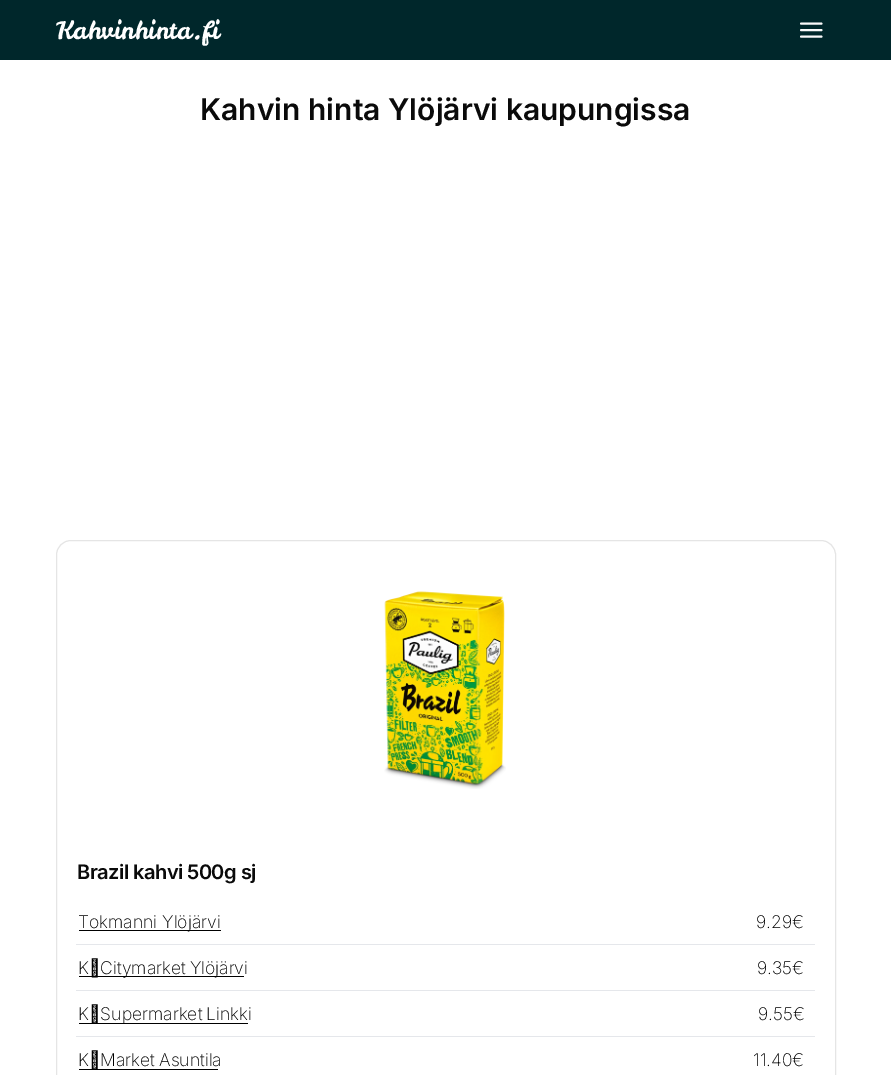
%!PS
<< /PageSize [891 1075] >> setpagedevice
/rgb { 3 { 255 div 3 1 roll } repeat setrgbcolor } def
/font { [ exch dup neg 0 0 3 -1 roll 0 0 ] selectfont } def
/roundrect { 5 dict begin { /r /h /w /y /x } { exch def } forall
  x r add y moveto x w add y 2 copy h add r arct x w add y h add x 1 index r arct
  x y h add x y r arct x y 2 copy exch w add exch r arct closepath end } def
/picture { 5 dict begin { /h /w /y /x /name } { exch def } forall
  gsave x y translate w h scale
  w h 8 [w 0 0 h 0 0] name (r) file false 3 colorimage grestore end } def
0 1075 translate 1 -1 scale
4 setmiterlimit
255 255 255 rgb
0 0 891 1075 rectfill
0 39 43 rgb
0 0 891 60 rectfill
250 250 250 rgb
1.9 setlinewidth
1 setlinecap
1 setlinejoin
801 23.5 moveto 821.5 23.5 lineto 801 30 moveto 821.5 30 lineto 801 36.5 moveto 821.5 36.5 lineto stroke
229 229 229 rgb
1 setlinewidth
0 setlinecap
0 setlinejoin
56.5 540.5 779 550 14.5 roundrect stroke
(img/1.rgb) 384 591 122 198 picture
[
  [76 944 739 1 229 231 235]
  [79 930 142 1 0 0 0]
  [76 990 739 1 229 231 235]
  [79 976 165 1 0 0 0]
  [76 1036 739 1 229 231 235]
  [79 1023 169 1 0 0 0]
  [79 1069 139 1 0 0 0]
] { aload pop rgb rectfill } forall
/LeckerliOne-Regular 25 font
255 255 255 rgb
56 39 moveto (Kahvinhinta.fi) show
/Inter-SemiBold 30 font
10 10 10 rgb
200 120 moveto (Kahvin hinta Ylöjärvi kaupungissa) show
/Inter-SemiBold 20 font
77 879 moveto -0.5 0 (Brazil kahvi 500g sj) ashow
/Inter-ExtraLight 17.5 font
0 0 0 rgb
78 928 moveto (Tokmanni Ylöjärvi) show
756 928 moveto (9.29€) show
78 974 moveto -1 0 32 (K‑Citymarket Ylöjärvi) widthshow
757 974 moveto (9.35€) show
78 1020 moveto -1 0 32 (K‑Supermarket Linkki) widthshow
758 1020 moveto (9.55€) show
78 1066 moveto -1 0 32 (K‑Market Asuntila) widthshow
753 1066 moveto (11.40€) show
showpage
